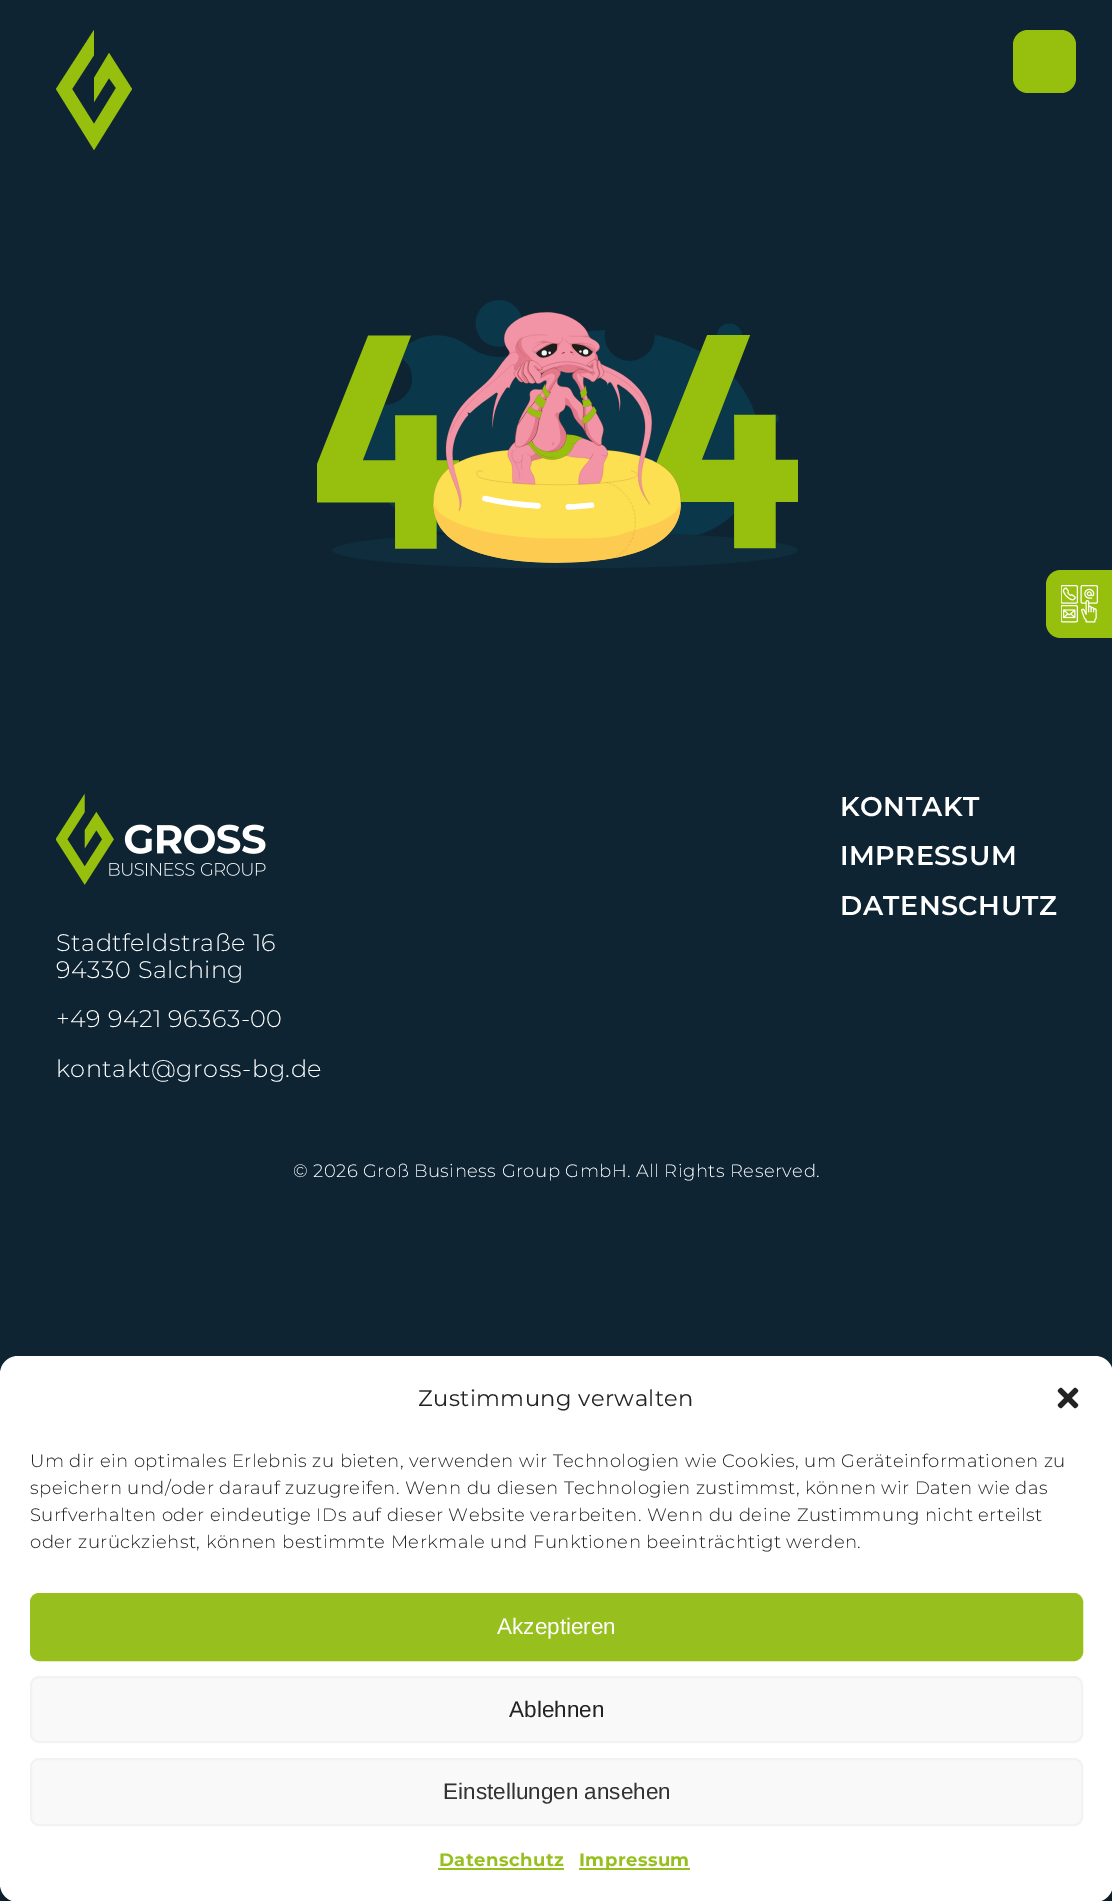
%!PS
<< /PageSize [1112 1901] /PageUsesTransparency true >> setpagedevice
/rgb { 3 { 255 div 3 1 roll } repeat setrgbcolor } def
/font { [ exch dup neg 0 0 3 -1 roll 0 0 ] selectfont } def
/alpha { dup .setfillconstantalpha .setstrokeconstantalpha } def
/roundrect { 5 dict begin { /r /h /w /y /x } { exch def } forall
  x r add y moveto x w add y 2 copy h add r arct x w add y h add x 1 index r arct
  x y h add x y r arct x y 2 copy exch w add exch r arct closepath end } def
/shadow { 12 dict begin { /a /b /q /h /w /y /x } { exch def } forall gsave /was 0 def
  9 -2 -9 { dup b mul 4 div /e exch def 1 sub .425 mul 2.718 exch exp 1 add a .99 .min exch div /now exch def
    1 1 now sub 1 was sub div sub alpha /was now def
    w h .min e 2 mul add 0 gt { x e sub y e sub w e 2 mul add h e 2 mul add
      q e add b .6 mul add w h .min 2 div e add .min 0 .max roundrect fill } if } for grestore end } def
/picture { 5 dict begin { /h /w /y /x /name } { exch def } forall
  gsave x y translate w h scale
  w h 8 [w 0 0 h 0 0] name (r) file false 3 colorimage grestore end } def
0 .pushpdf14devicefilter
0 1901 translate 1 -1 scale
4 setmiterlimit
14 36 51 rgb
0 0 1112 1901 rectfill
151 191 13 rgb
109 53 moveto 94 78 lineto 94 102 lineto 109 78 lineto 116 88 lineto 94 124 lineto 72 89 lineto 94 55 lineto 94 30 lineto 56 89 lineto 94 150 lineto 132 89 lineto closepath fill
1013 30 63 63 15 roundrect fill
(img/1.rgb) 317 300 481 268 picture
1061 570 moveto 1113 570 lineto 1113 638 lineto 1061 638 lineto 1052.5 638 1046 631.5 1046 623 curveto 1046 585 lineto 1046 576.5 1052.5 570 1061 570 curveto closepath fill
(img/2.rgb) 1061 585 37 38 picture
(img/3.rgb) 56 794 210 91 picture
0 0 0 rgb
0 1365 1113 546 18 4.5 0.23 shadow
255 255 255 rgb
0 1356 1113 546 18 roundrect fill
(img/4.rgb) 1057 1387 22 22 picture
151 191 30 rgb
31 1594 1051 66 8 roundrect gsave fill grestore
2 setlinewidth
stroke
249 249 249 rgb
31 1677 1051 65 8 roundrect gsave fill grestore
242 242 242 rgb
stroke
249 249 249 rgb
31 1759 1051 66 8 roundrect gsave fill grestore
242 242 242 rgb
stroke
151 191 30 rgb
438 1868 126 2 rectfill
579 1868 111 2 rectfill
/Montserrat-SemiBold 27 font
255 255 255 rgb
840 816 moveto 0.45 0 (KONTAKT) ashow
840 865 moveto 0.45 0 (IMPRESSUM) ashow
840 915 moveto 0.45 0 (DATENSCHUTZ) ashow
/Montserrat-Light 24 font
56 951 moveto 0.45 0 (Stadtfeldstraße 16) ashow
56 978 moveto 0.45 0 (94330 Salching) ashow
56 1027 moveto 0.45 0 (+49 9421 96363-00) ashow
56 1077 moveto 0.45 0 (kontakt@gross-bg.de) ashow
/Montserrat-Light 18 font
293 1177 moveto 0.45 0 (© 2026 Groß Business Group GmbH. All Rights Reserved.) ashow
/Montserrat-Thin 22.5 font
34 34 34 rgb
418 1406 moveto 0.45 0 (Zustimmung verwalten) ashow
/Montserrat-Light 18 font
30 1467 moveto 0.45 0 (Um dir ein optimales Erlebnis zu bieten, verwenden wir Technologien wie Cookies, um Geräteinformationen zu) ashow
30 1494 moveto 0.45 0 (speichern und/oder darauf zuzugreifen. Wenn du diesen Technologien zustimmst, können wir Daten wie das) ashow
30 1521 moveto 0.45 0 (Surfverhalten oder eindeutige IDs auf dieser Website verarbeiten. Wenn du deine Zustimmung nicht erteilst) ashow
30 1548 moveto 0.45 0 (oder zurückziehst, können bestimmte Merkmale und Funktionen beeinträchtigt werden.) ashow
/LiberationSans-Regular 22.5 font
255 255 255 rgb
497 1634 moveto (Akzeptieren) show
34 34 34 rgb
509 1717 moveto (Ablehnen) show
51 51 51 rgb
443 1799 moveto (Einstellungen ansehen) show
/Montserrat-Bold 18 font
151 191 30 rgb
439 1866 moveto 0.45 0 (Datenschutz) ashow
579 1866 moveto 0.45 0 (Impressum) ashow
.poppdf14devicefilter showpage
